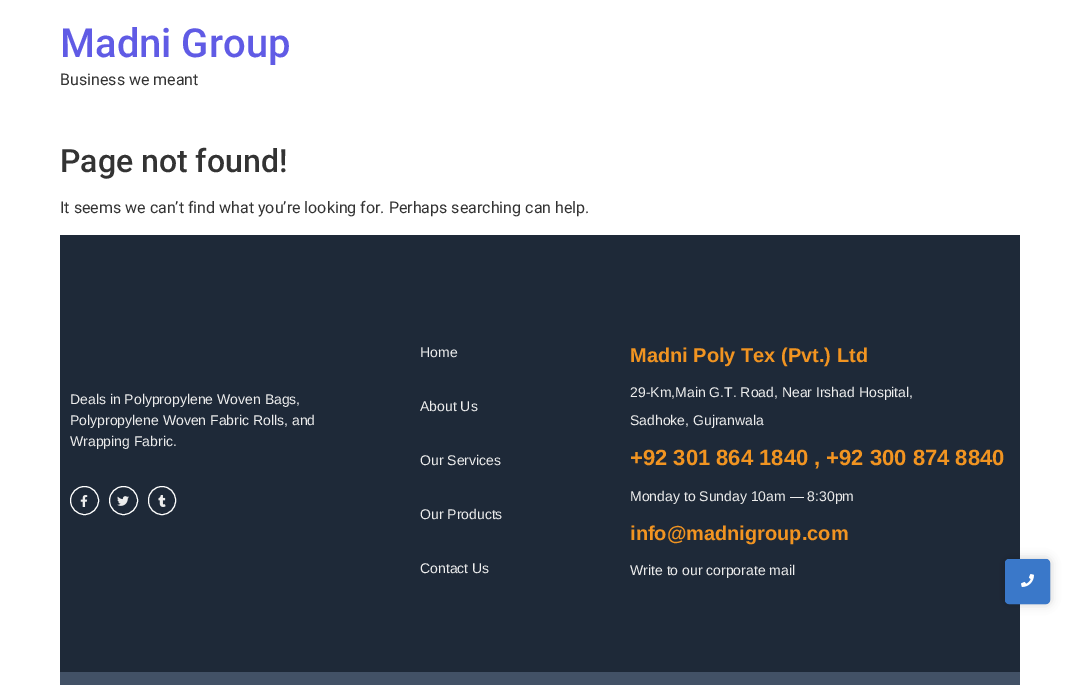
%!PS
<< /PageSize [1080 685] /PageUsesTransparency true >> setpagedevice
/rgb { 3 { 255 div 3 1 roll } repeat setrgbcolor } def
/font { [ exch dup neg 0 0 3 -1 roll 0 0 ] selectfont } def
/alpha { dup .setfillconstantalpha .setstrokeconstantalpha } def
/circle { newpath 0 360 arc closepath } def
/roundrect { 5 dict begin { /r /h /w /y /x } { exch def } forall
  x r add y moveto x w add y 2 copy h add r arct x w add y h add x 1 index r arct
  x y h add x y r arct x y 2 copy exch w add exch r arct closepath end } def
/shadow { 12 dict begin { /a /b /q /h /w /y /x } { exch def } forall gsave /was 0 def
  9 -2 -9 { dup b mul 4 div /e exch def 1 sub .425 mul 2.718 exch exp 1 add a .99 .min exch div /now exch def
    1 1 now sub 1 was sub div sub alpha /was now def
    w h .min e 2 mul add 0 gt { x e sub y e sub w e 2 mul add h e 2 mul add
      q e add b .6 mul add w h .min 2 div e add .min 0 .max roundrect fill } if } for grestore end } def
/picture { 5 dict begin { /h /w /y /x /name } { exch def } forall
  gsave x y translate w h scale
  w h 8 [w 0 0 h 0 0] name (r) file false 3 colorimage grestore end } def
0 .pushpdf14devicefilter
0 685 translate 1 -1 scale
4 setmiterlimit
255 255 255 rgb
0 0 1080 685 rectfill
30 41 56 rgb
60 235 960 437 rectfill
255 255 255 rgb
84.5 500.5 14 circle stroke
(img/1.rgb) 80 495 8 12 picture
123.5 500.5 14 circle stroke
(img/2.rgb) 117 496 12 10 picture
148.5 486.5 27 28 13.5 roundrect stroke
(img/3.rgb) 158 495 8 12 picture
0 0 0 rgb
1005 559 45 45 4 5 0.2 shadow
58 120 201 rgb
1005.5 559.5 44 44 3.5 roundrect gsave fill grestore
stroke
(img/4.rgb) 1021 574 13 13 picture
66 81 102 rgb
60 672 960 13 rectfill
/Roboto-Medium 40 font
96 91 229 rgb
60 57 moveto (Madni Group) show
/Roboto-Regular 16 font
51 51 51 rgb
60 85 moveto (Business we meant) show
/Roboto-Medium 32 font
60 172 moveto (Page not found!) show
/Roboto-Regular 16 font
60 213 moveto (It seems we can’t find what you’re looking for. Perhaps searching can help.) show
/LiberationSans-Regular 14 font
237 237 237 rgb
[
  [(Deals in Polypropylene Woven Bags,) 70 404]
  [(Polypropylene Woven Fabric Rolls, and) 70 425]
  [(Wrapping Fabric.) 70 446]
  [(Home) 420 357]
  [(About Us) 420 411]
  [(Our Services) 420 465]
  [(Our Products) 420 519]
  [(Contact Us) 420 573]
] { aload pop moveto show } forall
/LiberationSans-Bold 20 font
241 148 33 rgb
630 362 moveto (Madni Poly Tex \(Pvt.\) Ltd) show
/LiberationSans-Regular 14 font
237 237 237 rgb
630 397 moveto (29-Km,Main G.T. Road, Near Irshad Hospital,) show
630 425 moveto (Sadhoke, Gujranwala) show
/LiberationSans-Bold 22 font
241 148 33 rgb
630 465 moveto (+92 301 864 1840 , +92 300 874 8840) show
/LiberationSans-Regular 14 font
237 237 237 rgb
630 501 moveto (Monday to Sunday 10am — 8:30pm) show
/LiberationSans-Bold 20 font
241 148 33 rgb
630 540 moveto (info@madnigroup.com) show
/LiberationSans-Regular 14 font
237 237 237 rgb
630 575 moveto (Write to our corporate mail) show
.poppdf14devicefilter showpage
